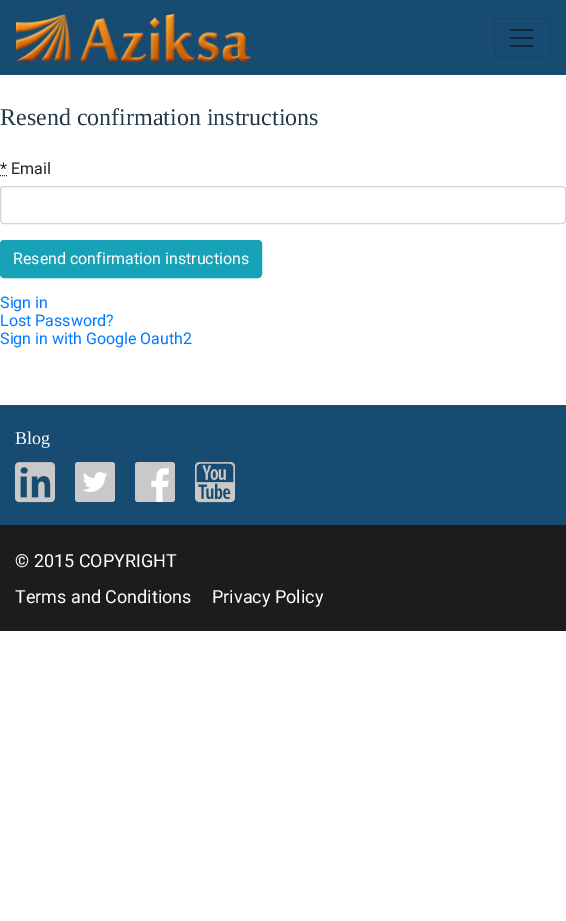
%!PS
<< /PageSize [566 921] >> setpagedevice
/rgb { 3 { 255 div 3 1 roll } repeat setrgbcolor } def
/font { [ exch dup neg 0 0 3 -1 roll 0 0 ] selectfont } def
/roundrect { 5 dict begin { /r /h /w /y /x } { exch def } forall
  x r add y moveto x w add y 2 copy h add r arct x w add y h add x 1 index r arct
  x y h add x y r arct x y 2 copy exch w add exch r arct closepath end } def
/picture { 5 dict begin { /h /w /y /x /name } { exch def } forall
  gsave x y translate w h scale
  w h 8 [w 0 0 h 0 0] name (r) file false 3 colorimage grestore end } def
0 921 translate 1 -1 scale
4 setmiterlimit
255 255 255 rgb
0 0 566 921 rectfill
24 75 113 rgb
0 0 566 75 rectfill
(img/1.rgb) 16 14 235 48 picture
22 68 102 rgb
494.5 18.5 55 39 3.5 roundrect stroke
(img/2.rgb) 510 29 24 18 picture
33 37 41 rgb
0 175.5 moveto 1 175.5 lineto 2 175.5 moveto 3 175.5 lineto 4 175.5 moveto 5 175.5 lineto 6 175.5 moveto 7 175.5 lineto stroke
206 212 218 rgb
0.5 186.5 565 37 3.5 roundrect stroke
23 162 184 rgb
0.5 240.5 261 37 3.5 roundrect gsave fill grestore
stroke
24 75 113 rgb
0 405 566 120 rectfill
(img/3.rgb) 15 462 40 41 picture
(img/4.rgb) 75 462 40 40 picture
(img/5.rgb) 135 462 40 40 picture
(img/6.rgb) 195 462 40 41 picture
28 28 28 rgb
0 525 566 106 rectfill
/LiberationSerif-Regular 24 font
34 57 73 rgb
0 125 moveto (Resend confirmation instructions) show
/Roboto-Regular 16 font
33 37 41 rgb
0 174 moveto (* Email) show
255 255 255 rgb
13 264 moveto (Resend confirmation instructions) show
0 123 255 rgb
[
  [(Sign in) 0 308]
  [(Lost Password?) 0 326]
  [(Sign in with Google Oauth2) 0 344]
] { aload pop moveto show } forall
/LiberationSerif-Regular 18 font
255 255 255 rgb
15 444 moveto (Blog) show
/Roboto-Regular 18 font
[
  [(© 2015 COPYRIGHT) 15 567]
  [(Terms and Conditions) 15 603]
  [(Privacy Policy) 212 603]
] { aload pop moveto show } forall
showpage
